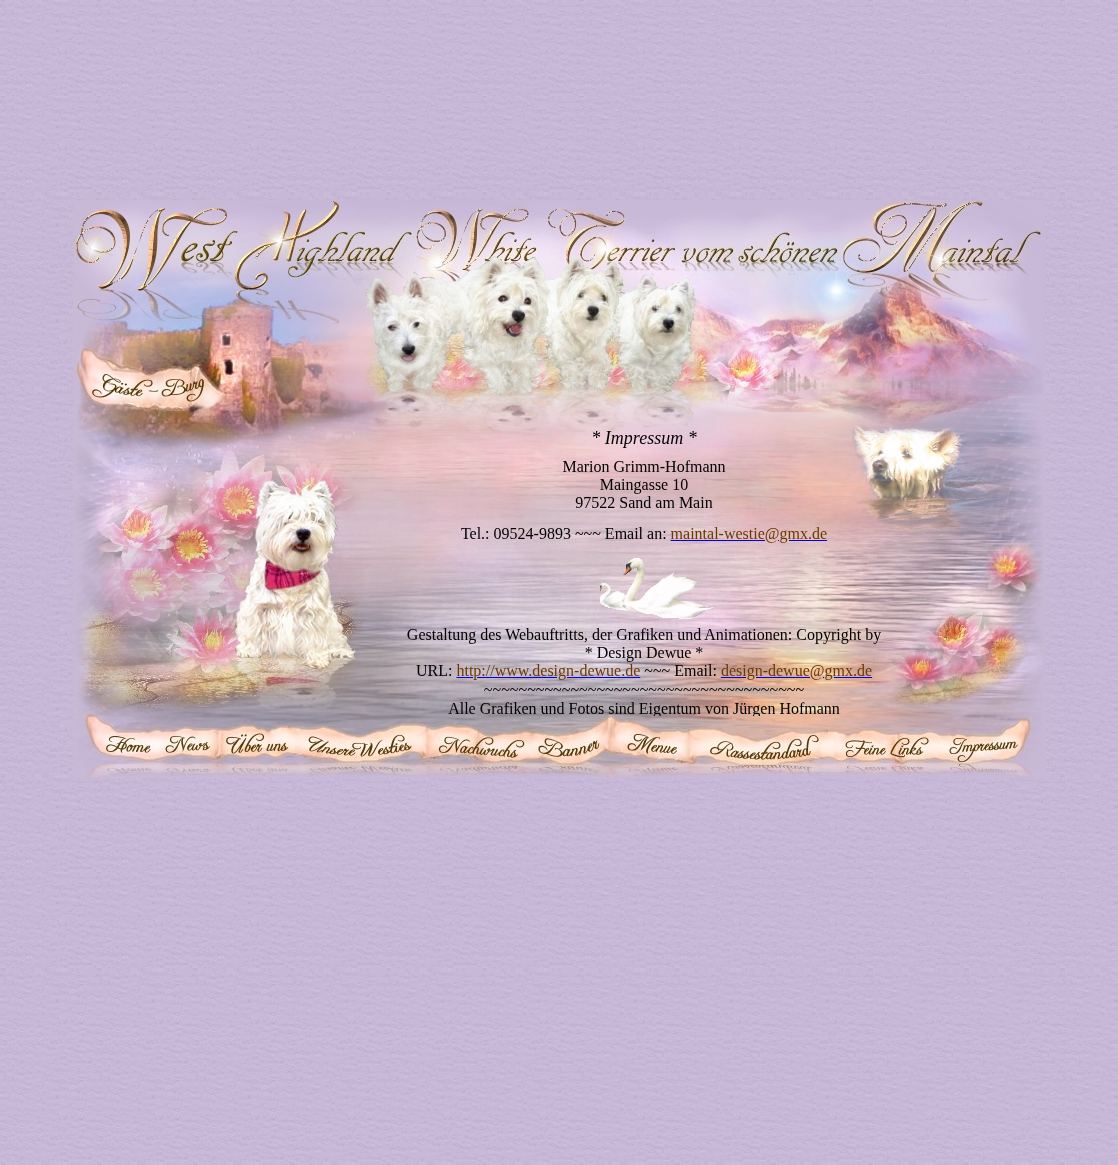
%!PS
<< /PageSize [1118 1165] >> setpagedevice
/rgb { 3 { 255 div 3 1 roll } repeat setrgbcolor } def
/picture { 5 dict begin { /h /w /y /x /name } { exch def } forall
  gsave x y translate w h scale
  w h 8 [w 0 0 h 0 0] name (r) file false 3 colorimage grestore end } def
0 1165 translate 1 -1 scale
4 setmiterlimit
255 255 255 rgb
0 0 1118 1165 rectfill
(img/1.rgb) 0 0 1118 1165 picture
(img/2.rgb) 73 200 291 213 picture
(img/3.rgb) 73 413 291 303 picture
(img/4.rgb) 364 200 679 201 picture
(img/5.rgb) 364 401 679 315 picture
(img/6.rgb) 407 431 475 285 picture
199 184 213 rgb
1043 200 3 514 rectfill
(img/7.rgb) 73 716 85 62 picture
(img/8.rgb) 158 716 61 62 picture
(img/9.rgb) 219 716 80 62 picture
(img/10.rgb) 299 716 128 62 picture
(img/11.rgb) 427 716 105 62 picture
(img/12.rgb) 532 716 82 62 picture
(img/13.rgb) 614 716 82 62 picture
(img/14.rgb) 696 716 137 62 picture
(img/15.rgb) 833 716 109 62 picture
(img/16.rgb) 942 716 104 62 picture
showpage
